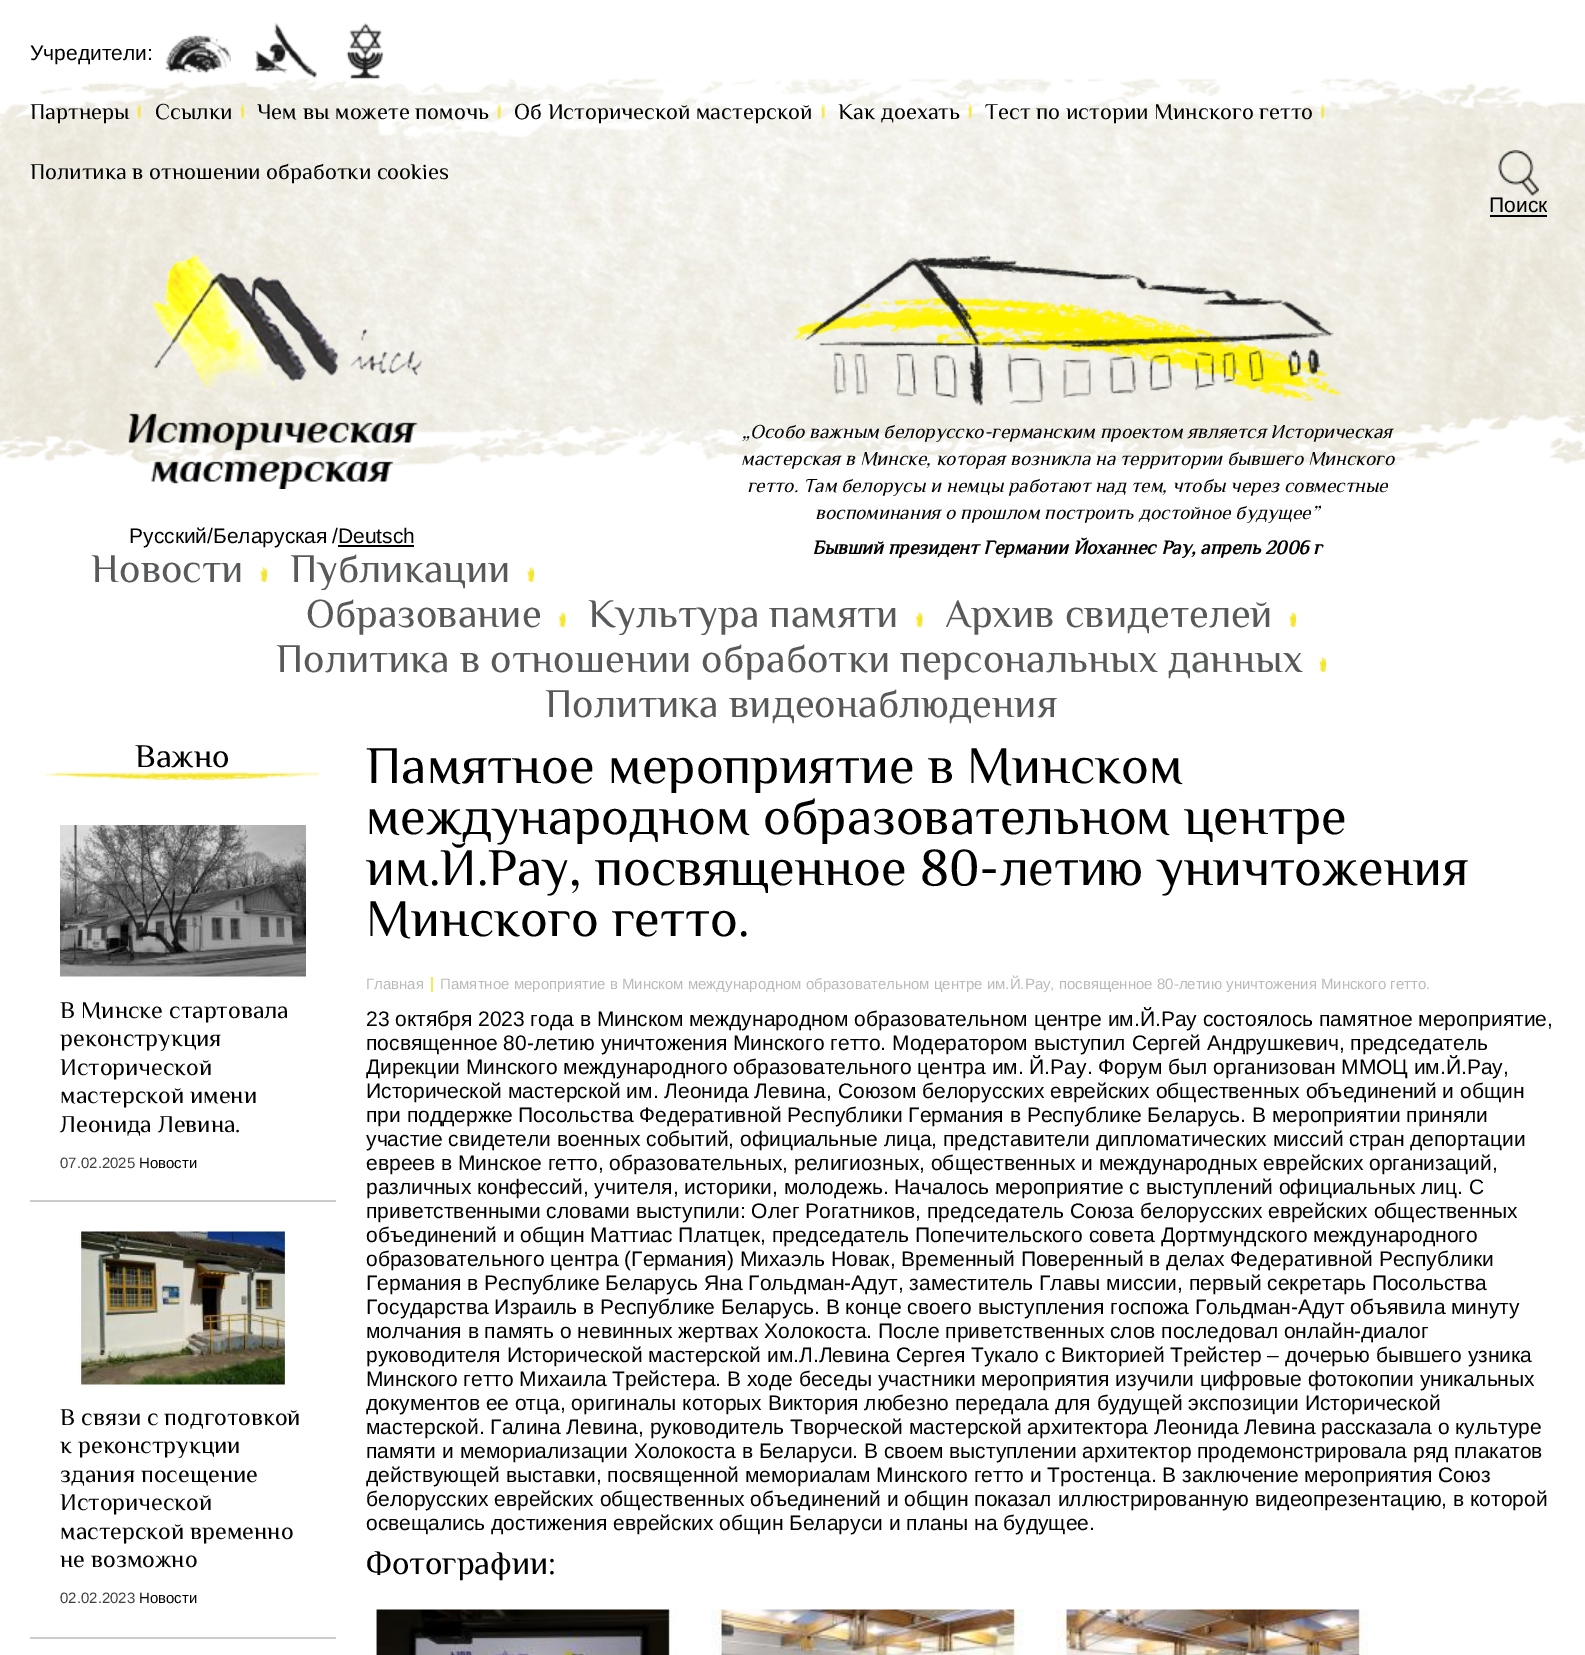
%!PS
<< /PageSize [1585 1655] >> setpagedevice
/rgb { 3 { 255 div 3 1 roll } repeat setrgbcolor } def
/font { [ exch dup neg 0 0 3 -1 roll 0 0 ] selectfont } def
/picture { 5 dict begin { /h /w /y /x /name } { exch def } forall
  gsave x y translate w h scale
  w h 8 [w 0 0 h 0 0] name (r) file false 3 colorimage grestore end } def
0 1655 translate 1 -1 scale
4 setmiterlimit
255 255 255 rgb
0 0 1585 1655 rectfill
(img/1.rgb) 0 78 1585 388 picture
(img/2.rgb) 165 34 66 40 picture
(img/3.rgb) 255 22 62 57 picture
(img/4.rgb) 346 22 38 58 picture
(img/5.rgb) 136 103 5 16 picture
(img/6.rgb) 240 103 5 16 picture
(img/7.rgb) 496 103 5 16 picture
(img/8.rgb) 820 103 5 16 picture
(img/9.rgb) 967 103 5 16 picture
(img/10.rgb) 1320 103 5 16 picture
(img/11.rgb) 127 255 295 234 picture
0 0 0 rgb
338 545 76 2 rectfill
(img/12.rgb) 1498 150 41 47 picture
1490 215 57 2 rectfill
(img/13.rgb) 793 255 550 152 picture
(img/14.rgb) 259 567 8 15 picture
(img/15.rgb) 526 567 8 15 picture
(img/16.rgb) 558 612 8 15 picture
(img/17.rgb) 915 612 8 15 picture
(img/15.rgb) 1288 612 8 15 picture
(img/15.rgb) 1318 657 8 15 picture
(img/18.rgb) 45 772 275 8 picture
204 204 204 rgb
30 1200 306 2 rectfill
(img/19.rgb) 60 825 246 152 picture
30 1637 306 2 rectfill
(img/20.rgb) 78 1231 208 154 picture
246 234 80 rgb
431 977 2 15 rectfill
(img/21.rgb) 375 1609 303 46 picture
(img/22.rgb) 711 1609 313 46 picture
(img/23.rgb) 1056 1609 312 46 picture
/LiberationSans-Regular 21 font
0 0 0 rgb
30 60 moveto (Учредители:) show
/Philosopher-Regular 22.5 font
[
  [(Партнеры) 30 119]
  [(Ссылки) 155 119]
  [(Чем вы можете помочь) 257 119]
  [(Об Исторической мастерской) 514 119]
  [(Как доехать) 838 119]
  [(Тест по иcтории Минского гетто) 985 119]
  [(Политика в отношении обработки cookies) 30 179]
] { aload pop moveto show } forall
/LiberationSans-Regular 21 font
[
  [(Русский/Беларуская) 129 543]
  [(/Deutsch) 332 543]
  [(Поиск) 1489 212]
] { aload pop moveto show } forall
/Philosopher-Italic 19.5 font
[
  [(„Особо важным белорусско-германским проектом является Историческая) 742 438]
  [(мастерская в Минске, которая возникла на территории бывшего Минского) 741 465]
  [(гетто. Там белорусы и немцы работают над тем, чтобы через совместные) 747 492]
  [(воспоминания о прошлом построить достойное будущее”) 815 519]
] { aload pop moveto show } forall
/Philosopher-BoldItalic 19.5 font
812 554 moveto (Бывший президент Германии Йоханнес Рау, апрель 2006 г) show
/Philosopher-Regular 40.5 font
88 89 91 rgb
[
  [(Новости) 91 582]
  [(Публикации) 290 582]
  [(Образование) 306 627]
  [(Культура памяти) 588 627]
  [(Архив свидетелей) 945 627]
  [(Политика в отношении обработки персональных данных) 276 672]
  [(Политика видеонаблюдения) 545 717]
] { aload pop moveto show } forall
/Philosopher-Regular 33 font
0 0 0 rgb
135 767 moveto (Важно) show
/Philosopher-Regular 24 font
[
  [(В Минске стартовала) 60 1018]
  [(реконструкция) 60 1046]
  [(Исторической) 60 1075]
  [(мастерской имени) 60 1103]
  [(Леонида Левина.) 60 1132]
] { aload pop moveto show } forall
/LiberationSans-Regular 15 font
65 64 66 rgb
60 1168 moveto (07.02.2025) show
0 0 0 rgb
139 1168 moveto (Новости) show
/Philosopher-Regular 24 font
[
  [(В связи с подготовкой) 60 1425]
  [(к реконструкции) 60 1453]
  [(здания посещение) 60 1482]
  [(Исторической) 60 1510]
  [(мастерской временно) 60 1539]
  [(не возможно) 60 1567]
] { aload pop moveto show } forall
/LiberationSans-Regular 15 font
65 64 66 rgb
60 1603 moveto (02.02.2023) show
0 0 0 rgb
139 1603 moveto (Новости) show
/Philosopher-Regular 52.5 font
[
  [(Памятное мероприятие в Минском) 366 783]
  [(международном образовательном центре) 366 834]
  [(им.Й.Рау, посвященное 80-летию уничтожения) 366 885]
  [(Минского гетто.) 366 936]
] { aload pop moveto show } forall
/LiberationSans-Regular 15 font
186 186 186 rgb
366 989 moveto (Главная) show
440 989 moveto (Памятное мероприятие в Минском международном образовательном центре им.Й.Рау, посвященное 80-летию уничтожения Минского гетто.) show
/LiberationSans-Regular 21 font
0 0 0 rgb
[
  [(23 октября 2023 года в Минском международном образовательном центре им.Й.Рау состоялось памятное мероприятие,) 366 1026]
  [(посвященное 80-летию уничтожения Минского гетто. Модератором выступил Сергей Андрушкевич, председатель) 366 1050]
  [(Дирекции Минского международного образовательного центра им. Й.Рау. Форум был организован ММОЦ им.Й.Рау,) 366 1074]
  [(Исторической мастерской им. Леонида Левина, Союзом белорусских еврейских общественных объединений и общин) 366 1098]
  [(при поддержке Посольства Федеративной Республики Германия в Республике Беларусь. В мероприятии приняли) 366 1122]
  [(участие свидетели военных событий, официальные лица, представители дипломатических миссий стран депортации) 366 1146]
  [(евреев в Минское гетто, образовательных, религиозных, общественных и международных еврейских организаций,) 366 1170]
  [(различных конфессий, учителя, историки, молодежь. Началось мероприятие с выступлений официальных лиц. С) 366 1194]
  [(приветственными словами выступили: Олег Рогатников, председатель Союза белорусских еврейских общественных) 366 1218]
  [(объединений и общин Маттиас Платцек, председатель Попечительского совета Дортмундского международного) 366 1242]
  [(образовательного центра \(Германия\) Михаэль Новак, Временный Поверенный в делах Федеративной Республики) 366 1266]
  [(Германия в Республике Беларусь Яна Гольдман-Адут, заместитель Главы миссии, первый секретарь Посольства) 366 1290]
  [(Государства Израиль в Республике Беларусь. В конце своего выступления госпожа Гольдман-Адут объявила минуту) 366 1314]
  [(молчания в память о невинных жертвах Холокоста. После приветственных слов последовал онлайн-диалог) 366 1338]
  [(руководителя Исторической мастерской им.Л.Левина Сергея Тукало с Викторией Трейстер – дочерью бывшего узника) 366 1362]
  [(Минского гетто Михаила Трейстера. В ходе беседы участники мероприятия изучили цифровые фотокопии уникальных) 366 1386]
  [(документов ее отца, оригиналы которых Виктория любезно передала для будущей экспозиции Исторической) 366 1410]
  [(мастерской. Галина Левина, руководитель Творческой мастерской архитектора Леонида Левина рассказала о культуре) 366 1434]
  [(памяти и мемориализации Холокоста в Беларуси. В своем выступлении архитектор продемонстрировала ряд плакатов) 366 1458]
  [(действующей выставки, посвященной мемориалам Минского гетто и Тростенца. В заключение мероприятия Союз) 366 1482]
  [(белорусских еврейских общественных объединений и общин показал иллюстрированную видеопрезентацию, в которой) 366 1506]
  [(освещались достижения еврейских общин Беларуси и планы на будущее.) 366 1530]
] { aload pop moveto show } forall
/Philosopher-Regular 33 font
366 1574 moveto (Фотографии:) show
showpage
